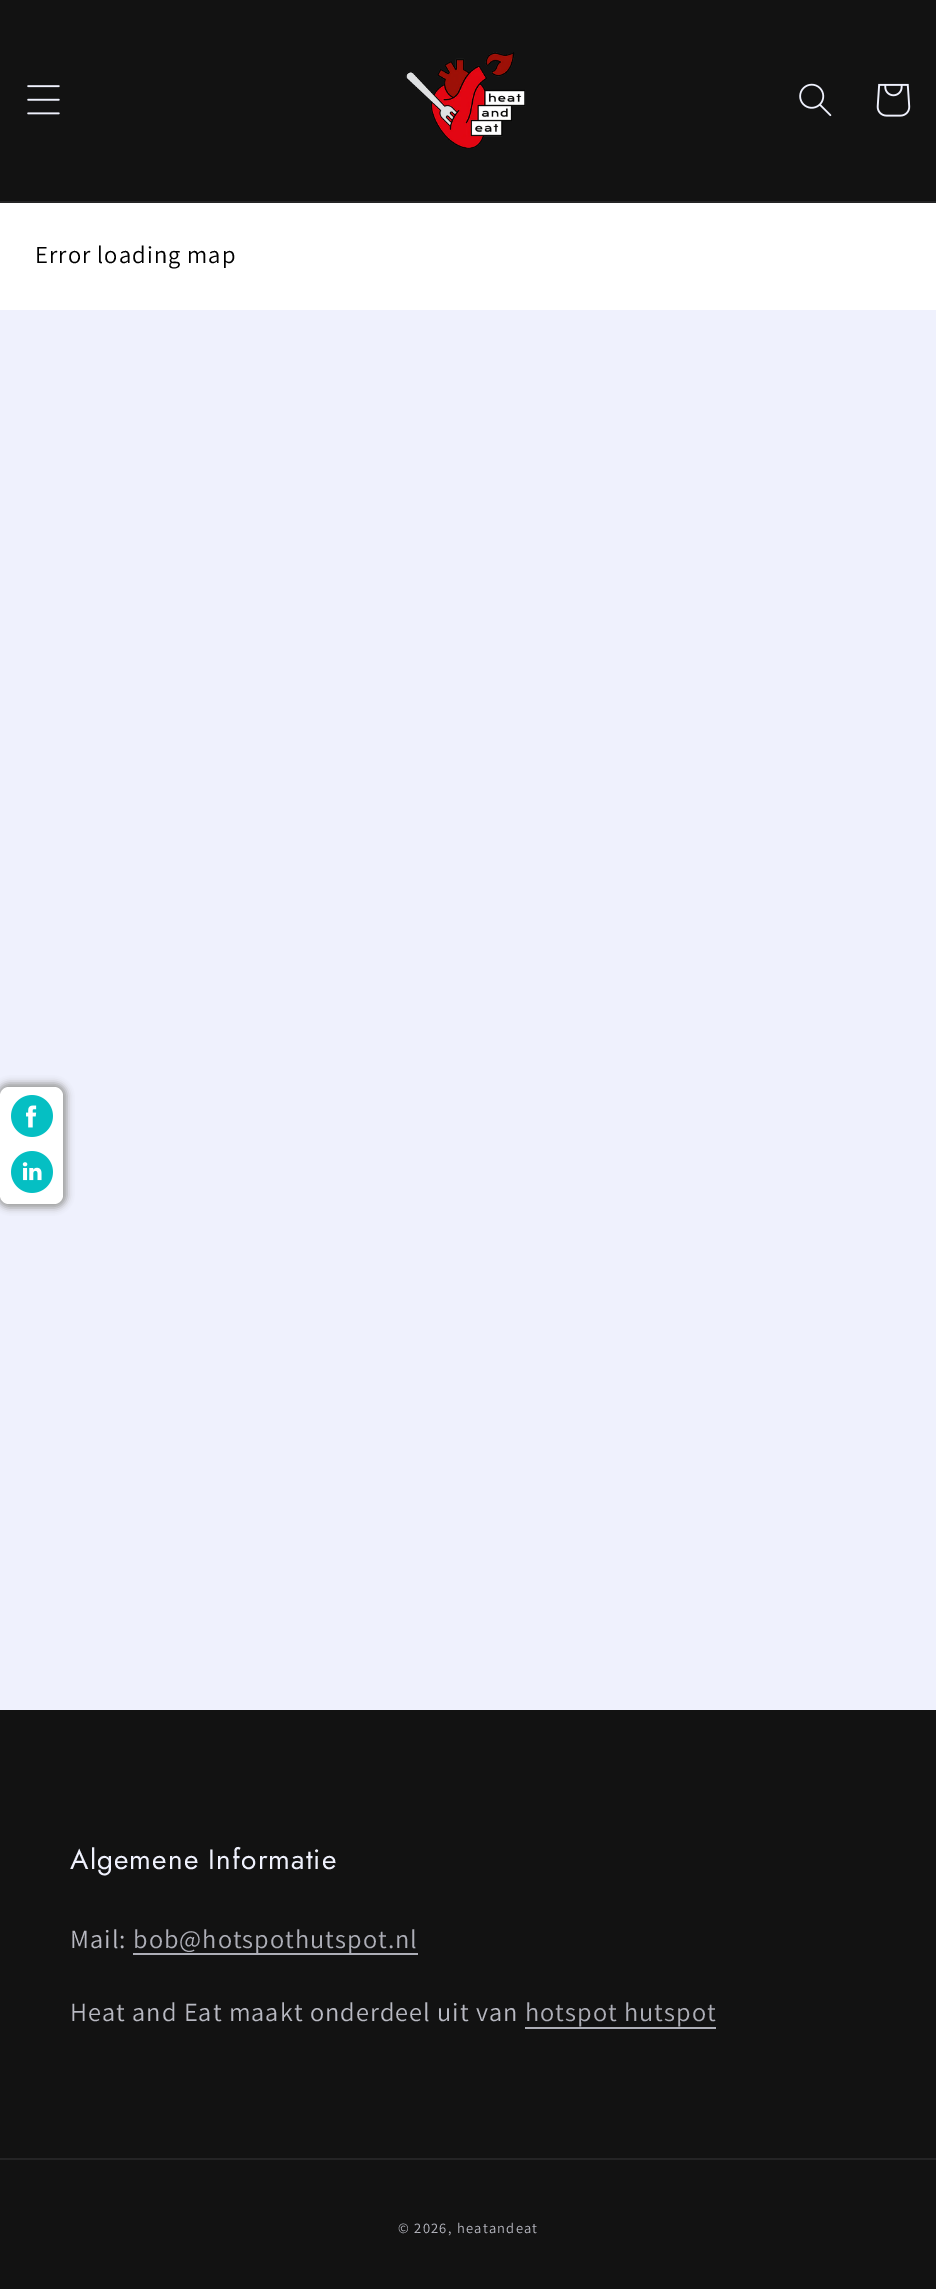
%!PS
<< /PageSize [936 2289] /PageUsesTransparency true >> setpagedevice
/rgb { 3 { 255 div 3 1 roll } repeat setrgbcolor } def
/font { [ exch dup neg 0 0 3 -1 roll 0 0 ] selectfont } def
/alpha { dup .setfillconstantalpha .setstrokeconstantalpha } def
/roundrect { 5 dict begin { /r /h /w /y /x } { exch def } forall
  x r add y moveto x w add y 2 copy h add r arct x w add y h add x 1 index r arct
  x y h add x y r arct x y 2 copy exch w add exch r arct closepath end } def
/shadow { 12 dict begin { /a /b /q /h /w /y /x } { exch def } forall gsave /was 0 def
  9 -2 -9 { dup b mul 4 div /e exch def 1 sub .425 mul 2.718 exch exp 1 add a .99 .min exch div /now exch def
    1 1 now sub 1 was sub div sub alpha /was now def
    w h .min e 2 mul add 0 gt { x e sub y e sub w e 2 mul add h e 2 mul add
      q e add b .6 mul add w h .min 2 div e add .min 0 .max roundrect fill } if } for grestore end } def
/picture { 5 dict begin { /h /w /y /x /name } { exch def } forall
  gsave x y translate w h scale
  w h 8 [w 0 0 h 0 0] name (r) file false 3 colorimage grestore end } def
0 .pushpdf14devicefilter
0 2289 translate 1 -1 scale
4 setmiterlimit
239 241 253 rgb
0 0 936 2289 rectfill
18 18 18 rgb
0 0 936 201 rectfill
36 36 37 rgb
0 201 936 2 rectfill
(img/1.rgb) 27 85 33 30 picture
(img/2.rgb) 405 52 121 97 picture
(img/3.rgb) 799 83 33 34 picture
(img/4.rgb) 876 83 35 34 picture
255 255 255 rgb
0 203 936 107 rectfill
158 158 158 rgb
-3 1083 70 125 12 3.5 1 shadow
255 255 255 rgb
0 1087 63 117 9 roundrect fill
(img/5.rgb) 11 1095 42 42 picture
(img/6.rgb) 11 1151 42 42 picture
[
  [0 1710 936 579 18 18 18]
  [133 1953 285 2 173 174 183]
  [525 2027 191 2 173 174 183]
  [0 2158 936 2 36 36 37]
] { aload pop rgb rectfill } forall
/Assistant-Regular 24.5 font
0 0 0 rgb
35 263 moveto 1.05 0 (Error loading map) ashow
/Jost-Regular 28 font
239 241 253 rgb
70 1869 moveto 1.05 0 (Algemene Informatie) ashow
/Assistant-Regular 26.25 font
184 185 194 rgb
70 1948 moveto 1.05 0 (Mail:) ashow
173 174 183 rgb
133 1948 moveto 1.05 0 (bob@hotspothutspot.nl) ashow
184 185 194 rgb
70 2021 moveto 1.05 0 (Heat and Eat maakt onderdeel uit van) ashow
173 174 183 rgb
525 2021 moveto 1.05 0 (hotspot hutspot) ashow
/Assistant-Regular 14.5 font
184 185 194 rgb
398 2233 moveto 1.25 0 (© 2026, heatandeat) ashow
.poppdf14devicefilter showpage
